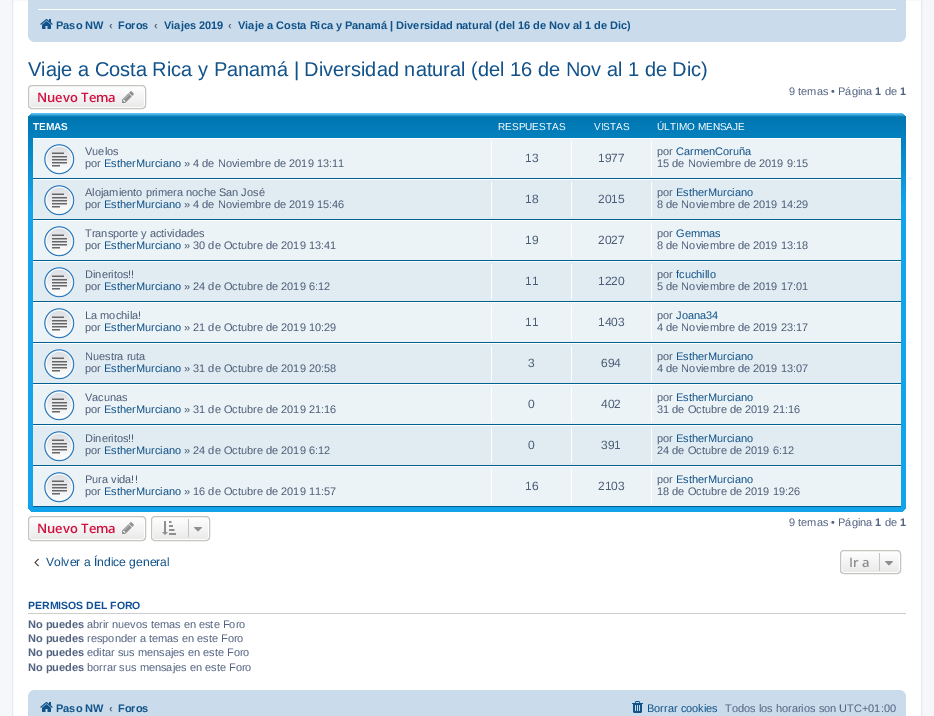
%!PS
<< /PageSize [934 716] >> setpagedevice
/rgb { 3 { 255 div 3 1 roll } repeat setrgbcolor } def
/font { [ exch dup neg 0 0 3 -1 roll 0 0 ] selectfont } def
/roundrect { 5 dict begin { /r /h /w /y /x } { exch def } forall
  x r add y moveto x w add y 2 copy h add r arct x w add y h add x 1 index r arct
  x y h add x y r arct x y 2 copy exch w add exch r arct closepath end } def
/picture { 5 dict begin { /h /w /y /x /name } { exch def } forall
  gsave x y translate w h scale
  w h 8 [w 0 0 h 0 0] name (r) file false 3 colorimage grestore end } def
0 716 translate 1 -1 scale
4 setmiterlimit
245 247 250 rgb
0 0 934 716 rectfill
255 255 255 rgb
12.5 -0.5 moveto 921.5 -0.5 lineto 921.5 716.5 lineto 12.5 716.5 lineto closepath gsave fill grestore
230 233 237 rgb
stroke
202 220 235 rgb
28 -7 878 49 7 roundrect fill
255 255 255 rgb
38 9 858 1 rectfill
(img/1.rgb) 40 19 13 10 picture
gsave
28 85 118 24 4 roundrect clip newpath
gsave 28 86 moveto 146 86 lineto 146 108 lineto 28 108 lineto closepath clip newpath
<< /ShadingType 2 /ColorSpace /DeviceRGB /Coords [87 86 87 108] /Extend [true true] /Function << /FunctionType 2 /Domain [0 1] /C0 [1 1 1] /C1 [0.914 0.914 0.914] /N 1 >> >> shfill grestore
grestore
29.5 86.5 115 21 2.5 roundrect stroke
199 195 191 rgb
28.5 85.5 117 23 3.5 roundrect stroke
(img/2.rgb) 122 91 12 12 picture
gsave 28 113 878 399 7 roundrect clip newpath
<< /ShadingType 2 /ColorSpace /DeviceRGB /Coords [467 113 467 512] /Extend [true true] /Function << /FunctionType 3 /Domain [0 1] /Functions [<< /FunctionType 2 /Domain [0 1] /C0 [0.416 0.808 1] /C1 [0 0.463 0.694] /N 1 >> << /FunctionType 2 /Domain [0 1] /C0 [0 0.463 0.694] /C1 [0.071 0.639 0.922] /N 1 >> << /FunctionType 2 /Domain [0 1] /C0 [0.071 0.639 0.922] /C1 [0.071 0.639 0.922] /N 1 >>] /Bounds [0.01 0.23] /Encode [0 1 0 1 0 1] >> >> shfill grestore
[
  [33 139 868 39 236 243 247]
  [33 138 868 1 255 255 255]
  [33 178 868 1 0 96 143]
] { aload pop rgb rectfill } forall
(img/3.rgb) 44 144 31 31 picture
[
  [491 141 1 35 255 255 255]
  [571 141 1 35 255 255 255]
  [651 141 1 35 255 255 255]
  [33 180 868 39 225 235 242]
  [33 179 868 1 255 255 255]
  [33 219 868 1 0 96 143]
] { aload pop rgb rectfill } forall
(img/4.rgb) 44 185 31 31 picture
[
  [491 182 1 35 255 255 255]
  [571 182 1 35 255 255 255]
  [651 182 1 35 255 255 255]
  [33 221 868 39 236 243 247]
  [33 220 868 1 255 255 255]
  [33 260 868 1 0 96 143]
] { aload pop rgb rectfill } forall
(img/3.rgb) 44 226 31 31 picture
[
  [491 223 1 35 255 255 255]
  [571 223 1 35 255 255 255]
  [651 223 1 35 255 255 255]
  [33 262 868 39 225 235 242]
  [33 261 868 1 255 255 255]
  [33 301 868 1 0 96 143]
] { aload pop rgb rectfill } forall
(img/4.rgb) 44 267 31 31 picture
[
  [491 264 1 35 255 255 255]
  [571 264 1 35 255 255 255]
  [651 264 1 35 255 255 255]
  [33 303 868 39 236 243 247]
  [33 302 868 1 255 255 255]
  [33 342 868 1 0 96 143]
] { aload pop rgb rectfill } forall
(img/3.rgb) 44 308 31 31 picture
[
  [491 305 1 35 255 255 255]
  [571 305 1 35 255 255 255]
  [651 305 1 35 255 255 255]
  [33 344 868 39 225 235 242]
  [33 343 868 1 255 255 255]
  [33 383 868 1 0 96 143]
] { aload pop rgb rectfill } forall
(img/4.rgb) 44 349 31 31 picture
[
  [491 346 1 35 255 255 255]
  [571 346 1 35 255 255 255]
  [651 346 1 35 255 255 255]
  [33 385 868 39 236 243 247]
  [33 384 868 1 255 255 255]
  [33 424 868 1 0 96 143]
] { aload pop rgb rectfill } forall
(img/3.rgb) 44 390 31 31 picture
[
  [491 387 1 35 255 255 255]
  [571 387 1 35 255 255 255]
  [651 387 1 35 255 255 255]
  [33 426 868 39 225 235 242]
  [33 425 868 1 255 255 255]
  [33 465 868 1 0 96 143]
] { aload pop rgb rectfill } forall
(img/4.rgb) 44 431 31 31 picture
[
  [491 428 1 35 255 255 255]
  [571 428 1 35 255 255 255]
  [651 428 1 35 255 255 255]
  [33 467 868 39 236 243 247]
  [33 466 868 1 255 255 255]
  [33 506 868 1 0 96 143]
] { aload pop rgb rectfill } forall
(img/3.rgb) 44 472 31 31 picture
[
  [491 469 1 35 255 255 255]
  [571 469 1 35 255 255 255]
  [651 469 1 35 255 255 255]
] { aload pop rgb rectfill } forall
gsave
28 516 118 25 4 roundrect clip newpath
gsave 28 517 moveto 146 517 lineto 146 540 lineto 28 540 lineto closepath clip newpath
<< /ShadingType 2 /ColorSpace /DeviceRGB /Coords [87 517 87 540] /Extend [true true] /Function << /FunctionType 2 /Domain [0 1] /C0 [1 1 1] /C1 [0.914 0.914 0.914] /N 1 >> >> shfill grestore
grestore
29.5 517.5 115 22 2.5 roundrect stroke
199 195 191 rgb
28.5 516.5 117 24 3.5 roundrect stroke
(img/2.rgb) 122 522 12 12 picture
gsave
151 516 59 25 4 roundrect clip newpath
gsave 151 517 moveto 210 517 lineto 210 540 lineto 151 540 lineto closepath clip newpath
<< /ShadingType 2 /ColorSpace /DeviceRGB /Coords [181 517 181 540] /Extend [true true] /Function << /FunctionType 2 /Domain [0 1] /C0 [1 1 1] /C1 [0.914 0.914 0.914] /N 1 >> >> shfill grestore
grestore
255 255 255 rgb
152.5 517.5 56 22 2.5 roundrect stroke
199 195 191 rgb
151.5 516.5 58 24 3.5 roundrect stroke
(img/5.rgb) 162 521 14 14 picture
188 519 1 18 rectfill
(img/6.rgb) 194 527 8 5 picture
(img/7.rgb) 34 558 5 9 picture
gsave
840 550 61 24 4 roundrect clip newpath
gsave 840 551 moveto 901 551 lineto 901 573 lineto 840 573 lineto closepath clip newpath
<< /ShadingType 2 /ColorSpace /DeviceRGB /Coords [871 551 871 573] /Extend [true true] /Function << /FunctionType 2 /Domain [0 1] /C0 [1 1 1] /C1 [0.914 0.914 0.914] /N 1 >> >> shfill grestore
grestore
255 255 255 rgb
841.5 551.5 58 21 2.5 roundrect stroke
199 195 191 rgb
840.5 550.5 60 23 3.5 roundrect stroke
879 553 1 18 rectfill
(img/6.rgb) 885 561 8 5 picture
204 204 204 rgb
28 613 878 1 rectfill
202 220 235 rgb
28 690 878 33 7 roundrect fill
(img/1.rgb) 40 702 13 10 picture
(img/8.rgb) 632 701 11 12 picture
/LiberationSans-Bold 11 font
16 82 137 rgb
56 29 moveto (Paso NW) show
83 100 130 rgb
109 29 moveto (‹) show
16 82 137 rgb
118 29 moveto (Foros) show
83 100 130 rgb
154 29 moveto (‹) show
16 82 137 rgb
164 29 moveto (Viajes 2019) show
83 100 130 rgb
228 29 moveto (‹) show
16 82 137 rgb
238 29 moveto (Viaje a Costa Rica y Panamá | Diversidad natural \(del 16 de Nov al 1 de Dic\)) show
/LiberationSans-Regular 20 font
28 76 moveto (Viaje a Costa Rica y Panamá | Diversidad natural \(del 16 de Nov al 1 de Dic\)) show
/OpenSans-SemiBold 13 font
211 17 65 rgb
37 102 moveto (Nuevo Tema) show
/LiberationSans-Regular 11 font
83 100 130 rgb
789 95 moveto (9 temas • Página) show
/LiberationSans-Bold 11 font
875 95 moveto (1) show
/LiberationSans-Regular 11 font
885 95 moveto (de) show
/LiberationSans-Bold 11 font
900 95 moveto (1) show
/LiberationSans-Bold 10 font
255 255 255 rgb
33 130 moveto (TEMAS) show
/LiberationSans-Regular 10 font
[
  [(RESPUESTAS) 498 130]
  [(VISTAS) 594 130]
  [(ÚLTIMO MENSAJE) 657 130]
] { aload pop moveto show } forall
/LiberationSans-Regular 11 font
76 93 119 rgb
85 155 moveto (Vuelos) show
85 167 moveto (por) show
16 82 137 rgb
104 167 moveto (EstherMurciano) show
76 93 119 rgb
184 167 moveto (» 4 de Noviembre de 2019 13:11) show
/LiberationSans-Regular 12 font
525 162 moveto (13) show
598 162 moveto (1977) show
/LiberationSans-Regular 11 font
657 155 moveto (por) show
16 82 137 rgb
676 155 moveto (CarmenCoruña) show
76 93 119 rgb
[
  [(15 de Noviembre de 2019 9:15) 657 167]
  [(Alojamiento primera noche San José) 85 196]
  [(por) 85 208]
] { aload pop moveto show } forall
16 82 137 rgb
104 208 moveto (EstherMurciano) show
76 93 119 rgb
184 208 moveto (» 4 de Noviembre de 2019 15:46) show
/LiberationSans-Regular 12 font
525 203 moveto (18) show
598 203 moveto (2015) show
/LiberationSans-Regular 11 font
657 196 moveto (por) show
16 82 137 rgb
676 196 moveto (EstherMurciano) show
76 93 119 rgb
[
  [(8 de Noviembre de 2019 14:29) 657 208]
  [(Transporte y actividades) 85 237]
  [(por) 85 249]
] { aload pop moveto show } forall
16 82 137 rgb
104 249 moveto (EstherMurciano) show
76 93 119 rgb
184 249 moveto (» 30 de Octubre de 2019 13:41) show
/LiberationSans-Regular 12 font
525 244 moveto (19) show
598 244 moveto (2027) show
/LiberationSans-Regular 11 font
657 237 moveto (por) show
16 82 137 rgb
676 237 moveto (Gemmas) show
76 93 119 rgb
[
  [(8 de Noviembre de 2019 13:18) 657 249]
  [(Dineritos!!) 85 278]
  [(por) 85 290]
] { aload pop moveto show } forall
16 82 137 rgb
104 290 moveto (EstherMurciano) show
76 93 119 rgb
184 290 moveto (» 24 de Octubre de 2019 6:12) show
/LiberationSans-Regular 12 font
525 285 moveto (11) show
598 285 moveto (1220) show
/LiberationSans-Regular 11 font
657 278 moveto (por) show
16 82 137 rgb
676 278 moveto (fcuchillo) show
76 93 119 rgb
[
  [(5 de Noviembre de 2019 17:01) 657 290]
  [(La mochila!) 85 319]
  [(por) 85 331]
] { aload pop moveto show } forall
16 82 137 rgb
104 331 moveto (EstherMurciano) show
76 93 119 rgb
184 331 moveto (» 21 de Octubre de 2019 10:29) show
/LiberationSans-Regular 12 font
525 326 moveto (11) show
598 326 moveto (1403) show
/LiberationSans-Regular 11 font
657 319 moveto (por) show
16 82 137 rgb
676 319 moveto (Joana34) show
76 93 119 rgb
[
  [(4 de Noviembre de 2019 23:17) 657 331]
  [(Nuestra ruta) 85 360]
  [(por) 85 372]
] { aload pop moveto show } forall
16 82 137 rgb
104 372 moveto (EstherMurciano) show
76 93 119 rgb
184 372 moveto (» 31 de Octubre de 2019 20:58) show
/LiberationSans-Regular 12 font
528 367 moveto (3) show
601 367 moveto (694) show
/LiberationSans-Regular 11 font
657 360 moveto (por) show
16 82 137 rgb
676 360 moveto (EstherMurciano) show
76 93 119 rgb
[
  [(4 de Noviembre de 2019 13:07) 657 372]
  [(Vacunas) 85 401]
  [(por) 85 413]
] { aload pop moveto show } forall
16 82 137 rgb
104 413 moveto (EstherMurciano) show
76 93 119 rgb
184 413 moveto (» 31 de Octubre de 2019 21:16) show
/LiberationSans-Regular 12 font
528 408 moveto (0) show
601 408 moveto (402) show
/LiberationSans-Regular 11 font
657 401 moveto (por) show
16 82 137 rgb
676 401 moveto (EstherMurciano) show
76 93 119 rgb
[
  [(31 de Octubre de 2019 21:16) 657 413]
  [(Dineritos!!) 85 442]
  [(por) 85 454]
] { aload pop moveto show } forall
16 82 137 rgb
104 454 moveto (EstherMurciano) show
76 93 119 rgb
184 454 moveto (» 24 de Octubre de 2019 6:12) show
/LiberationSans-Regular 12 font
528 449 moveto (0) show
601 449 moveto (391) show
/LiberationSans-Regular 11 font
657 442 moveto (por) show
16 82 137 rgb
676 442 moveto (EstherMurciano) show
76 93 119 rgb
[
  [(24 de Octubre de 2019 6:12) 657 454]
  [(Pura vida!!) 85 483]
  [(por) 85 495]
] { aload pop moveto show } forall
16 82 137 rgb
104 495 moveto (EstherMurciano) show
76 93 119 rgb
184 495 moveto (» 16 de Octubre de 2019 11:57) show
/LiberationSans-Regular 12 font
525 490 moveto (16) show
598 490 moveto (2103) show
/LiberationSans-Regular 11 font
657 483 moveto (por) show
16 82 137 rgb
676 483 moveto (EstherMurciano) show
76 93 119 rgb
657 495 moveto (18 de Octubre de 2019 19:26) show
/OpenSans-SemiBold 13 font
211 17 65 rgb
37 533 moveto (Nuevo Tema) show
/LiberationSans-Regular 11 font
83 100 130 rgb
789 526 moveto (9 temas • Página) show
/LiberationSans-Bold 11 font
875 526 moveto (1) show
/LiberationSans-Regular 11 font
885 526 moveto (de) show
/LiberationSans-Bold 11 font
900 526 moveto (1) show
/LiberationSans-Regular 12.1 font
16 82 137 rgb
46 566 moveto (Volver a Índice general) show
/OpenSans-SemiBold 13 font
143 143 143 rgb
849 567 moveto (Ir a) show
/LiberationSans-Bold 10.5 font
17 80 152 rgb
28 609 moveto (PERMISOS DEL FORO) show
/LiberationSans-Bold 11 font
83 100 130 rgb
28 628 moveto (No puedes) show
/LiberationSans-Regular 11 font
87 628 moveto (abrir nuevos temas en este Foro) show
/LiberationSans-Bold 11 font
28 642 moveto (No puedes) show
/LiberationSans-Regular 11 font
87 642 moveto (responder a temas en este Foro) show
/LiberationSans-Bold 11 font
28 656 moveto (No puedes) show
/LiberationSans-Regular 11 font
87 656 moveto (editar sus mensajes en este Foro) show
/LiberationSans-Bold 11 font
28 671 moveto (No puedes) show
/LiberationSans-Regular 11 font
87 671 moveto (borrar sus mensajes en este Foro) show
/LiberationSans-Bold 11 font
16 82 137 rgb
56 712 moveto (Paso NW) show
83 100 130 rgb
109 712 moveto (‹) show
16 82 137 rgb
118 712 moveto (Foros) show
/LiberationSans-Regular 11 font
647 712 moveto (Borrar cookies) show
83 100 130 rgb
725 712 moveto (Todos los horarios son UTC+01:00) show
showpage
